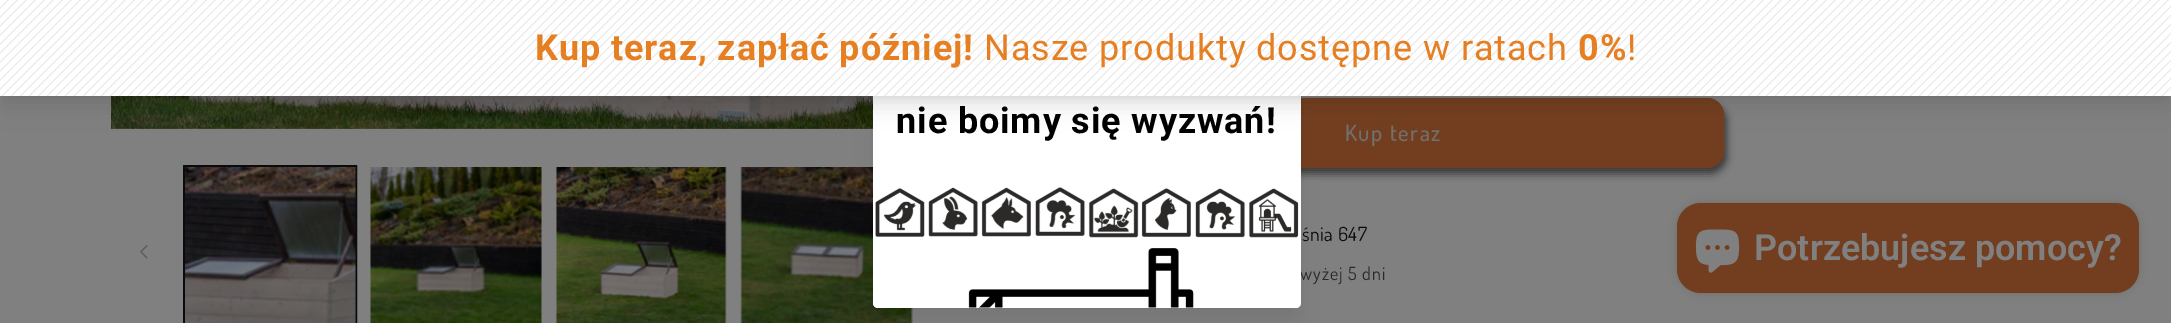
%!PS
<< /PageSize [2171 323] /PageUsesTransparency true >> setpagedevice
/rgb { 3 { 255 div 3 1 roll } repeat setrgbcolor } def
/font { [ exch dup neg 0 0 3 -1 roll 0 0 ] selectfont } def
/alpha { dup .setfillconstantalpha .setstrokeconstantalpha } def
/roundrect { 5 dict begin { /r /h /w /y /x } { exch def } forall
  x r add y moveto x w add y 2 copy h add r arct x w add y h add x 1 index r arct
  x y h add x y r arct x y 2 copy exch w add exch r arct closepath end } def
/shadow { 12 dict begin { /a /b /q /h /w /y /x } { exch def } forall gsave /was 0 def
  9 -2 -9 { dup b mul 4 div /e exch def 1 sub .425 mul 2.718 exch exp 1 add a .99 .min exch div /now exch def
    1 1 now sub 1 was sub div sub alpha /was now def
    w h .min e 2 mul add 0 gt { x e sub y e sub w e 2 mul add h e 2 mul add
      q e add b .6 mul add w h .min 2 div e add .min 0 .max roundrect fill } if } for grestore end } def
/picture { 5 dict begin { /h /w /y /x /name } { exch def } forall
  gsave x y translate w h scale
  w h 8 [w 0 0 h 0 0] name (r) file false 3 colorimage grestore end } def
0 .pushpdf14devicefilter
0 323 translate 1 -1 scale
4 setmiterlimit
128 128 128 rgb
0 0 2171 323 rectfill
(img/3.rgb) 111 96 762 33 picture
(img/8.rgb) 740 167 173 156 picture
9 11 14 rgb
1067 104 660 70 17 4 0.6 shadow
115 62 32 rgb
1064 98 660 70 17 roundrect fill
2 setlinewidth
1065 99 658 68 16 roundrect stroke
0 0 0 rgb
878 36 418 282 0 11 0.1 shadow
(img/4.rgb) 140 245 8 14 picture
9 11 14 rgb
184 166 172 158 rectstroke
(img/5.rgb) 185 167 171 156 picture
(img/6.rgb) 370 167 172 156 picture
(img/7.rgb) 556 167 171 156 picture
0 0 0 rgb
1677 203 462 90 24 4 0.15 shadow
115 62 32 rgb
1677 203 462 90 24 roundrect fill
(img/9.rgb) 1695 229 45 44 picture
/Dosis-Medium 22.5 font
112 112 108 rgb
1345 141 moveto 1.5 0 (Kup teraz) ashow
/Dosis-Regular 19.5 font
9 11 14 rgb
1302 241 moveto 0.5 0 (śnia 647) ashow
/Dosis-Regular 18 font
39 40 43 rgb
1300 280 moveto 1 0 (wyżej 5 dni) ashow
255 255 255 rgb
873 17 428 291 5 roundrect fill
0 0 0 rgb
5 20 2163 87 0 11 0.1 shadow
3 9 2166 90 0 4.5 0.05 shadow
255 255 255 rgb
0 0 2171 96 rectfill
(img/1.rgb) 0 0 2171 96 picture
/Roboto-Regular 36 font
230 126 34 rgb
1627 60 moveto 0.9 0 (!) ashow
/Roboto-Bold 36 font
1578 60 moveto 0.9 0 (0%) ashow
/Roboto-Regular 36 font
984 60 moveto 0.9 0 (Nasze produkty dostępne w ratach) ashow
/Roboto-Bold 36 font
535 60 moveto 0.9 0 (Kup teraz, zapłać później!) ashow
(img/2.rgb) 873 187 426 121 picture
0 0 0 rgb
896 133 moveto 0.9 0 (nie boimy się wyzwań!) ashow
/Roboto-SemiBold 36 font
128 128 128 rgb
1754 260 moveto (Potrzebujesz pomocy?) show
.poppdf14devicefilter showpage
